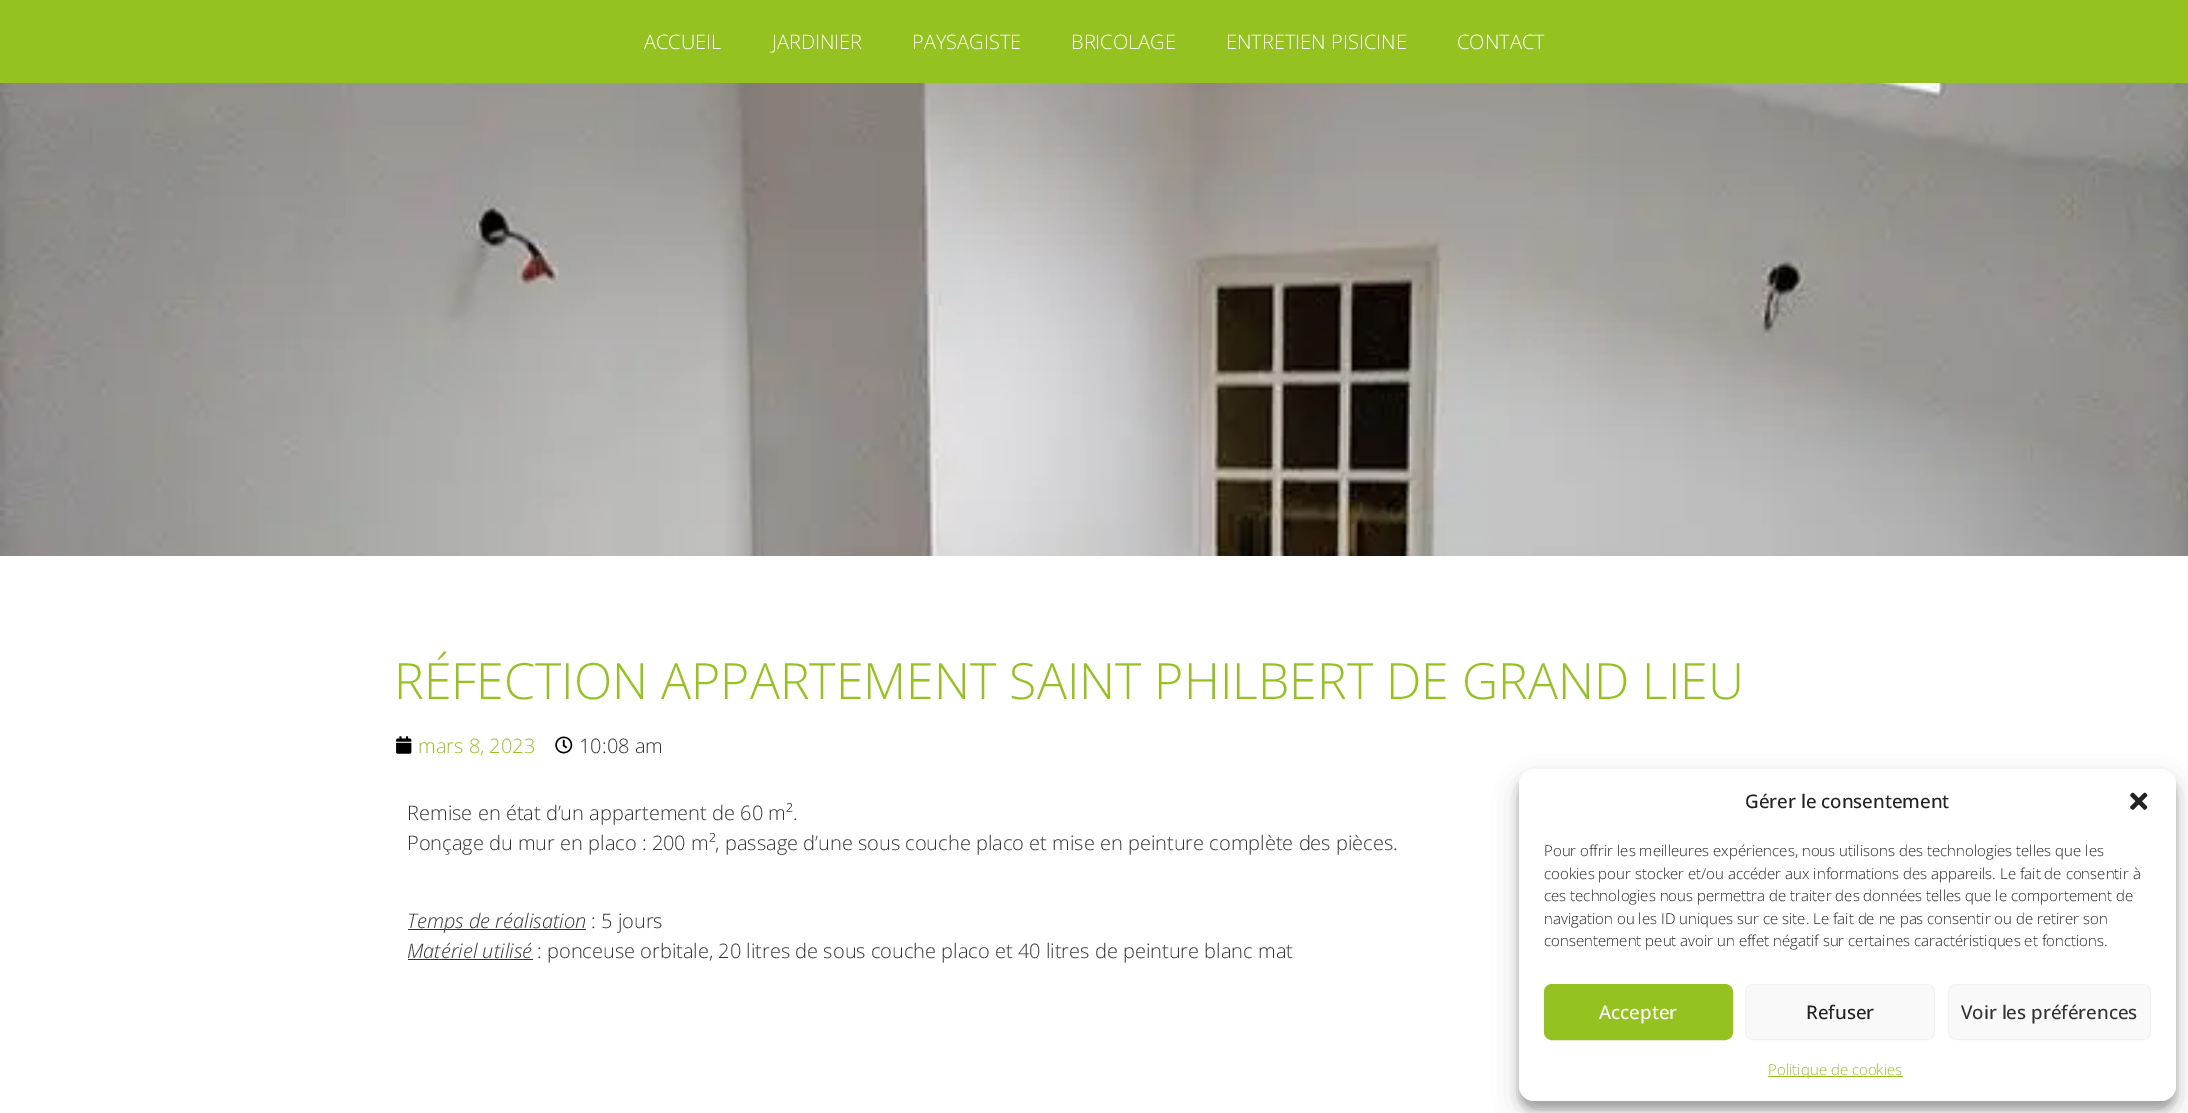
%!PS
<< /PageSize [2188 1113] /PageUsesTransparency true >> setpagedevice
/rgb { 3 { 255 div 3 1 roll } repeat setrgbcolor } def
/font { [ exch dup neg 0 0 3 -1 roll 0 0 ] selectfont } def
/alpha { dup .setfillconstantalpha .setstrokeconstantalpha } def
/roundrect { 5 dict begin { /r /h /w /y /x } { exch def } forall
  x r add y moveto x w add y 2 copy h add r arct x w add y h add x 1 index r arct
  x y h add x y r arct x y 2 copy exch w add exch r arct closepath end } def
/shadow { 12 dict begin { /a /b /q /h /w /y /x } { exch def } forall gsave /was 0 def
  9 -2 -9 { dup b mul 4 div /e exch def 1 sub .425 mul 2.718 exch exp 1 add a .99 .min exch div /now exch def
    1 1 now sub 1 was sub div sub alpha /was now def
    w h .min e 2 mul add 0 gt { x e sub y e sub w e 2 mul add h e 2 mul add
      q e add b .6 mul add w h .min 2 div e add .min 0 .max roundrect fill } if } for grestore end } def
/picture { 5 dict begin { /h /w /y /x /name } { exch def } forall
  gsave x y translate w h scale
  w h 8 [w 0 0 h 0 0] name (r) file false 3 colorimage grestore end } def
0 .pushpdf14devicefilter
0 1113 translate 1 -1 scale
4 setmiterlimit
255 255 255 rgb
0 0 2188 1113 rectfill
149 194 33 rgb
0 0 2188 83 rectfill
(img/1.rgb) 0 83 2188 473 picture
(img/2.rgb) 396 736 16 18 picture
(img/3.rgb) 555 736 18 18 picture
51 51 51 rgb
408 929 178 1 rectfill
408 959 125 1 rectfill
0 0 0 rgb
1519 776 657 333 15 4 0.23 shadow
1519 781 657 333 15 12.5 0.19 shadow
255 255 255 rgb
1519 769 657 332 15 roundrect fill
(img/4.rgb) 2130 792 18 18 picture
149 194 33 rgb
1544.5 984.5 188 55 7.5 roundrect gsave fill grestore
stroke
249 249 249 rgb
1745.5 984.5 189 55 7.5 roundrect gsave fill grestore
242 242 242 rgb
stroke
249 249 249 rgb
1948.5 984.5 202 55 7.5 roundrect gsave fill grestore
242 242 242 rgb
stroke
149 194 33 rgb
1768 1076 135 1 rectfill
/OpenSans-Light 20 font
255 255 255 rgb
[
  [(ACCUEIL) 644 49]
  [(JARDINIER) 772 49]
  [(PAYSAGISTE) 912 49]
  [(BRICOLAGE) 1071 49]
  [(ENTRETIEN PISICINE) 1226 49]
  [(CONTACT) 1457 49]
] { aload pop moveto show } forall
/OpenSans-Light 50 font
149 194 33 rgb
394 699 moveto (RÉFECTION APPARTEMENT SAINT PHILBERT DE GRAND LIEU) show
/OpenSans-Light 20 font
418 753 moveto (mars 8, 2023) show
51 51 51 rgb
[
  [(10:08 am) 579 753]
  [(Remise en état d’un appartement de 60 m².) 407 820]
  [(Ponçage du mur en placo : 200 m², passage d’une sous couche placo et mise en peinture complète des pièces.) 407 850]
] { aload pop moveto show } forall
/OpenSans-LightItalic 20 font
407 928 moveto (Temps de réalisation) show
/OpenSans-Light 20 font
591 928 moveto (: 5 jours) show
/OpenSans-LightItalic 20 font
407 958 moveto (Matériel utilisé) show
/OpenSans-Light 20 font
537 958 moveto (: ponceuse orbitale, 20 litres de sous couche placo et 40 litres de peinture blanc mat) show
/OpenSans-Medium 18.75 font
34 34 34 rgb
1745 808 moveto (Gérer le consentement) show
/OpenSans-Light 15 font
[
  [(Pour offrir les meilleures expériences, nous utilisons des technologies telles que les) 1544 856]
  [(cookies pour stocker et/ou accéder aux informations des appareils. Le fait de consentir à) 1544 879]
  [(ces technologies nous permettra de traiter des données telles que le comportement de) 1544 901]
  [(navigation ou les ID uniques sur ce site. Le fait de ne pas consentir ou de retirer son) 1544 924]
  [(consentement peut avoir un effet négatif sur certaines caractéristiques et fonctions.) 1544 946]
] { aload pop moveto show } forall
/OpenSans-Medium 18.75 font
255 255 255 rgb
1599 1019 moveto (Accepter) show
34 34 34 rgb
1806 1019 moveto (Refuser) show
51 51 51 rgb
1961 1019 moveto (Voir les préférences) show
/OpenSans-Light 15 font
149 194 33 rgb
1768 1075 moveto (Politique de cookies) show
.poppdf14devicefilter showpage
